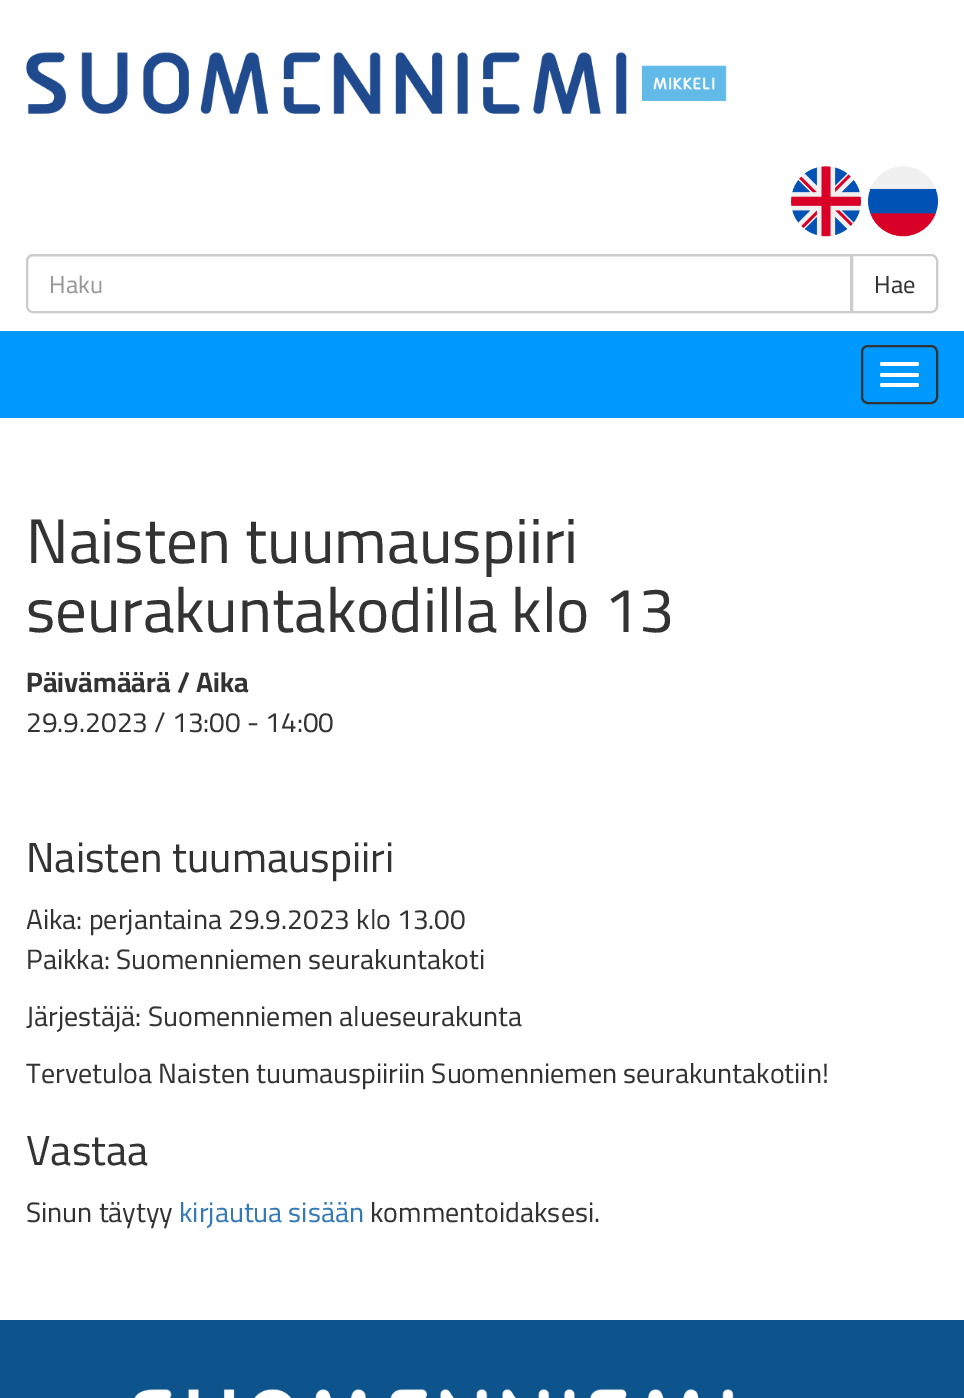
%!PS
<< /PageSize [964 1398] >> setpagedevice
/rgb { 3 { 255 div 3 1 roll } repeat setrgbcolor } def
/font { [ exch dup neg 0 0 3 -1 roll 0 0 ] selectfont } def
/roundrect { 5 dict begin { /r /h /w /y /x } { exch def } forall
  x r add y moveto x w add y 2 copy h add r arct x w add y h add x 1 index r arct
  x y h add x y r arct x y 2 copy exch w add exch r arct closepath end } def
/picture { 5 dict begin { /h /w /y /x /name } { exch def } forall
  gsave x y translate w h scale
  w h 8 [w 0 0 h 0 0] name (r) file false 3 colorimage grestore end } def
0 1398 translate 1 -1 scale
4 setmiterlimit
255 255 255 rgb
0 0 964 1398 rectfill
(img/1.rgb) 26 52 701 62 picture
(img/2.rgb) 791 166 70 71 picture
(img/3.rgb) 868 166 70 71 picture
236 236 236 rgb
33 257 moveto 850 257 lineto 850 312 lineto 851 312 lineto 851 256 lineto 33 256 lineto 30 256 28 258 28 261 curveto 28 262 lineto 28 260 30 257 33 257 curveto closepath fill
204 204 204 rgb
2 setlinewidth
33 255 moveto 851 255 lineto 851 312 lineto 33 312 lineto 29.5 312 27 309.5 27 306 curveto 27 261 lineto 27 257.5 29.5 255 33 255 curveto closepath stroke
255 255 255 rgb
852 255 moveto 931 255 lineto 934.5 255 937 257.5 937 261 curveto 937 306 lineto 937 309.5 934.5 312 931 312 curveto 852 312 lineto closepath gsave fill grestore
204 204 204 rgb
stroke
0 153 255 rgb
0 331 964 87 rectfill
51 51 51 rgb
862 346 75 57 6 roundrect stroke
255 255 255 rgb
880 362 39 4 2 roundrect fill
880 373 39 4 2 roundrect fill
880 383 39 4 2 roundrect fill
13 84 140 rgb
0 1320 964 78 rectfill
(img/4.rgb) 134 1389 600 9 picture
/Cairo-Regular 24.5 font
153 153 153 rgb
49 293 moveto (Haku) show
51 51 51 rgb
874 293 moveto (Hae) show
/Cairo-Regular 63 font
26 563 moveto (Naisten tuumauspiiri) show
26 632 moveto (seurakuntakodilla klo 13) show
/Cairo-Bold 28 font
26 692 moveto (Päivämäärä / Aika) show
/Cairo-Regular 28 font
26 732 moveto (29.9.2023 / 13:00 - 14:00) show
/Cairo-Regular 42 font
26 872 moveto (Naisten tuumauspiiri) show
/Cairo-Regular 28 font
[
  [(Aika: perjantaina 29.9.2023 klo 13.00) 26 929]
  [(Paikka: Suomenniemen seurakuntakoti) 26 969]
  [(Järjestäjä: Suomenniemen alueseurakunta) 26 1026]
  [(Tervetuloa Naisten tuumauspiiriin Suomenniemen seurakuntakotiin!) 26 1083]
] { aload pop moveto show } forall
/Cairo-Regular 42 font
26 1165 moveto (Vastaa) show
/Cairo-Regular 28 font
26 1222 moveto (Sinun täytyy) show
51 122 183 rgb
179 1222 moveto (kirjautua sisään) show
51 51 51 rgb
370 1222 moveto (kommentoidaksesi.) show
showpage
